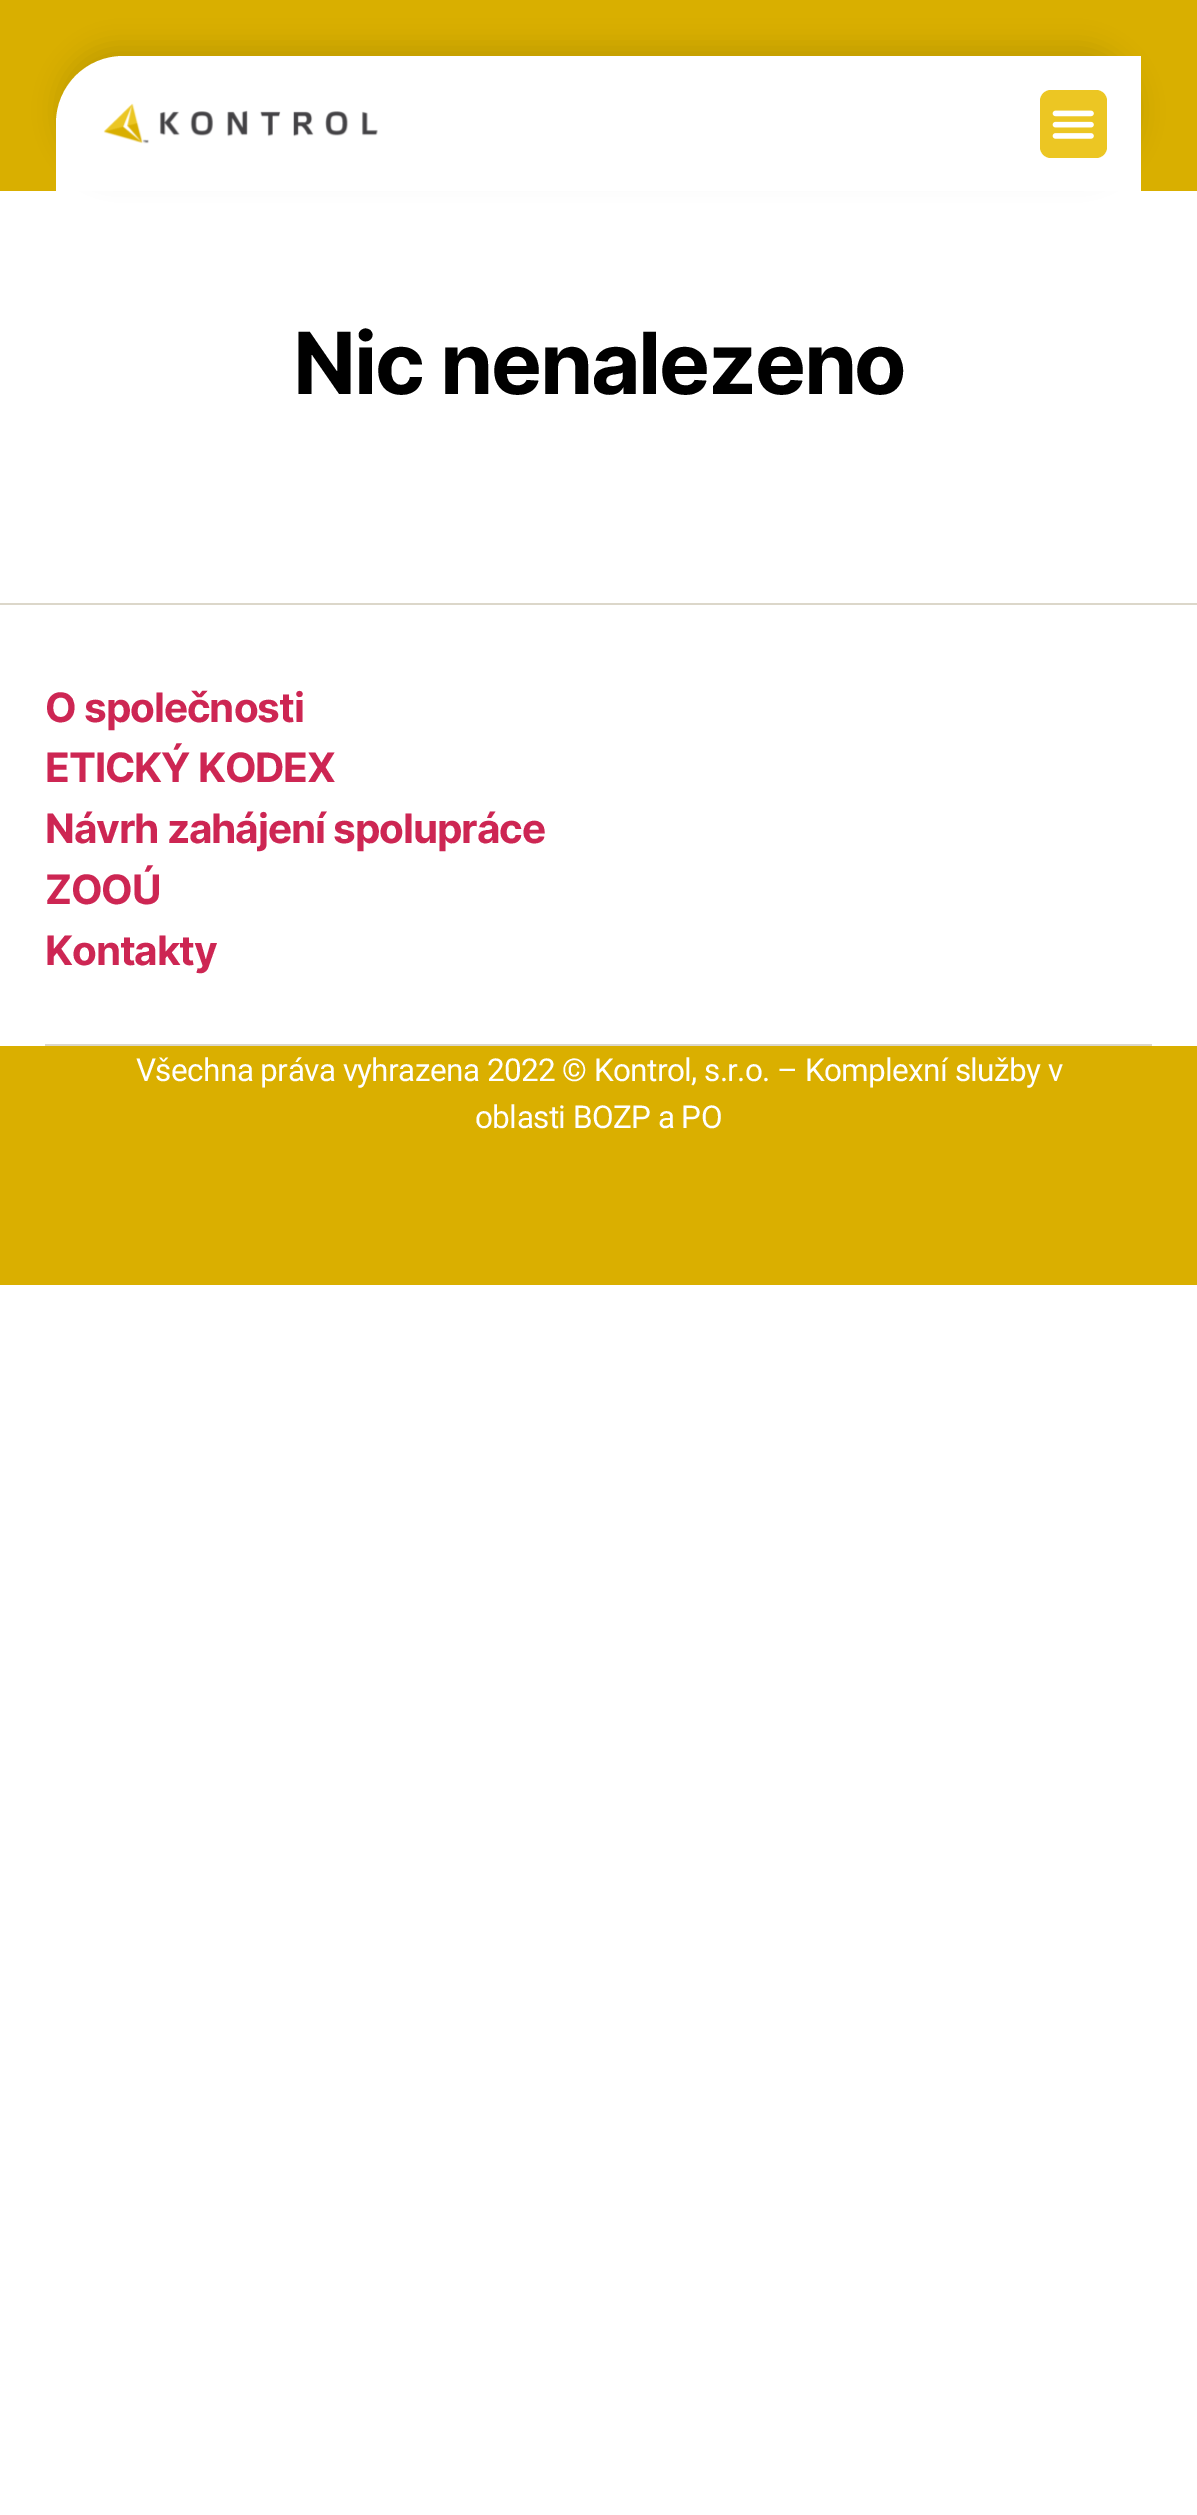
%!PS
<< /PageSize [1197 2515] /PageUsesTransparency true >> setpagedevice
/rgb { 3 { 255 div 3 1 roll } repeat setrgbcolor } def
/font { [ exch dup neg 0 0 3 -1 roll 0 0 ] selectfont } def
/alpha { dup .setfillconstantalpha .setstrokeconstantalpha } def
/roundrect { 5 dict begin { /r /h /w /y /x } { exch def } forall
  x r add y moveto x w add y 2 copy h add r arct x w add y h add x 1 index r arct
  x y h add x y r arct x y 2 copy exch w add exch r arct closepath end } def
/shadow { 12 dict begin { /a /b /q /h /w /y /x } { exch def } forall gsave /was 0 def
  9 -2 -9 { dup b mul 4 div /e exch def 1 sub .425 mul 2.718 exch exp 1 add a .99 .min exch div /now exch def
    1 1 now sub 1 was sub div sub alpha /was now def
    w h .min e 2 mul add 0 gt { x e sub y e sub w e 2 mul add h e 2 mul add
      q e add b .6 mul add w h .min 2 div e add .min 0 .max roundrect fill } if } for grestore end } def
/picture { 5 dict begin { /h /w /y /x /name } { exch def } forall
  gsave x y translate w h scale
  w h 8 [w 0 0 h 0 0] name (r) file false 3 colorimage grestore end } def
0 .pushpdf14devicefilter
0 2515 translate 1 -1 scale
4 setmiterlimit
255 255 255 rgb
0 0 1197 2515 rectfill
217 175 0 rgb
0 0 1197 191 rectfill
0 0 0 rgb
56 43 1085 135 67.5 11 0.09 shadow
255 255 255 rgb
123.5 56 moveto 1141 56 lineto 1141 191 lineto 56 191 lineto 56 123.5 lineto 56 86 86 56 123.5 56 curveto closepath fill
(img/1.rgb) 103 103 275 41 picture
236 198 35 rgb
1040 90 67 68 11 roundrect fill
(img/2.rgb) 1052 110 42 29 picture
[
  [0 603 1197 2 220 215 202]
  [45 1044 1107 2 220 215 202]
  [0 1046 1197 239 218 175 0]
] { aload pop rgb rectfill } forall
/Inter-Bold 85.5 font
0 0 0 rgb
293 394 moveto -2.25 0 (Nic nenalezeno) ashow
/Inter-Bold 40.5 font
205 38 83 rgb
45 722 moveto -1.1 0 (O společnosti) ashow
45 782 moveto -1.1 0 (ETICKÝ KODEX) ashow
45 843 moveto -1.1 0 (Návrh zahájení spolupráce) ashow
45 904 moveto -1.1 0 (ZOOÚ) ashow
45 965 moveto -1.1 0 (Kontakty) ashow
/Roboto-Regular 31.5 font
255 255 255 rgb
136 1081 moveto -0.6 0 (Všechna práva vyhrazena 2022 © Kontrol, s.r.o. – Komplexní služby v) ashow
475 1128 moveto -0.6 0 (oblasti BOZP a PO) ashow
.poppdf14devicefilter showpage
